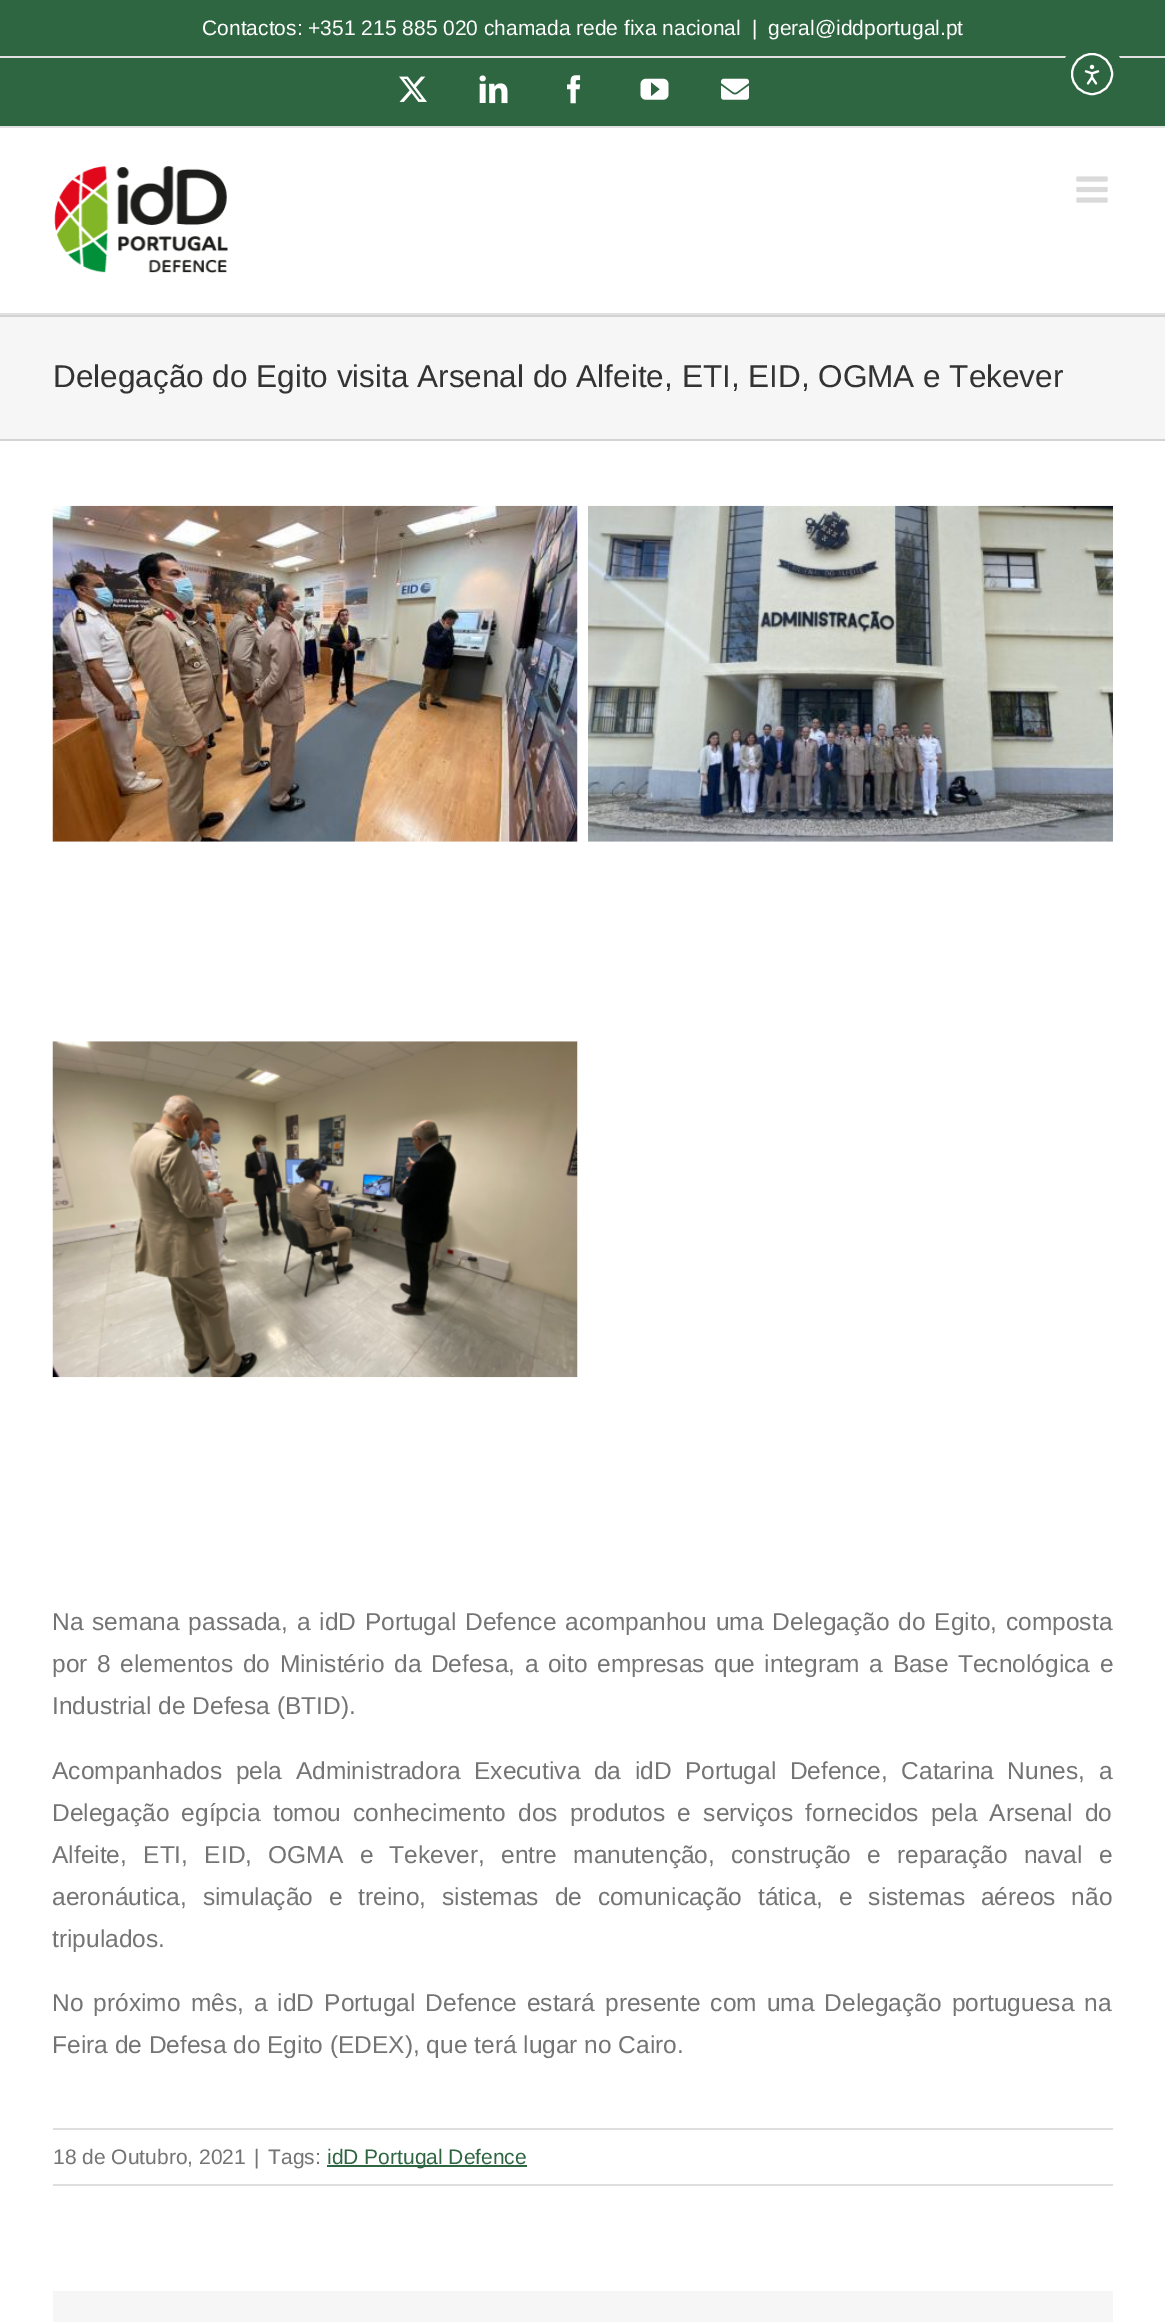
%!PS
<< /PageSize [1165 2322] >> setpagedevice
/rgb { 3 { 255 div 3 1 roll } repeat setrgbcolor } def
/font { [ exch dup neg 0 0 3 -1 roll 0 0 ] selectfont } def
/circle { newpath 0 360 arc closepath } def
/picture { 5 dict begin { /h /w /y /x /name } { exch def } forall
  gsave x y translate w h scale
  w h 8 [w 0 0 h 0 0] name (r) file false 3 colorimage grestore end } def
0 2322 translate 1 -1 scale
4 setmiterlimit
255 255 255 rgb
0 0 1165 2322 rectfill
[
  [0 0 1165 126 47 102 66]
  [0 126 1165 2 225 225 225]
  [0 56 1165 2 225 225 225]
] { aload pop rgb rectfill } forall
(img/1.rgb) 399 76 28 26 picture
(img/2.rgb) 479 75 29 29 picture
(img/3.rgb) 567 75 14 29 picture
(img/4.rgb) 640 78 29 22 picture
(img/5.rgb) 721 78 28 22 picture
0 313 1165 2 rectfill
(img/6.rgb) 54 166 174 107 picture
(img/7.rgb) 1076 176 32 27 picture
[
  [0 317 1165 122 246 246 246]
  [0 315 1165 2 210 211 212]
  [0 439 1165 2 210 211 212]
] { aload pop rgb rectfill } forall
(img/8.rgb) 52 505 526 337 picture
(img/9.rgb) 588 505 525 337 picture
(img/10.rgb) 52 1041 526 337 picture
[
  [53 2128 1060 2 224 222 222]
  [53 2184 1060 2 224 222 222]
  [327 2165 200 2 47 102 66]
  [53 2291 1060 31 246 246 246]
] { aload pop rgb rectfill } forall
47 102 66 rgb
1092.5 73.5 31.5 circle fill
255 255 255 rgb
2 setlinewidth
1092 74 20 circle stroke
(img/11.rgb) 1084 64 16 21 picture
/LiberationSans-Regular 21 font
[
  [(Contactos: +351 215 885 020 chamada rede fixa nacional) 202 35]
  [(|) 752 35]
  [(geral@iddportugal.pt) 768 35]
] { aload pop moveto show } forall
/LiberationSans-Regular 31.5 font
51 51 51 rgb
53 387 moveto (Delegação do Egito visita Arsenal do Alfeite, ETI, EID, OGMA e Tekever) show
/LiberationSans-Regular 24.5 font
116 116 116 rgb
52 1630 moveto 2.1 0 32 (Na semana passada, a idD Portugal Defence acompanhou uma Delegação do Egito, composta) widthshow
52 1672 moveto 2.75 0 32 (por 8 elementos do Ministério da Defesa, a oito empresas que integram a Base Tecnológica e) widthshow
52 1714 moveto (Industrial de Defesa \(BTID\).) show
52 1779 moveto 6.75 0 32 (Acompanhados pela Administradora Executiva da idD Portugal Defence, Catarina Nunes, a) widthshow
52 1821 moveto 5.5 0 32 (Delegação egípcia tomou conhecimento dos produtos e serviços fornecidos pela Arsenal do) widthshow
52 1863 moveto 9.5 0 32 (Alfeite, ETI, EID, OGMA e Tekever, entre manutenção, construção e reparação naval e) widthshow
52 1905 moveto 9 0 32 (aeronáutica, simulação e treino, sistemas de comunicação tática, e sistemas aéreos não) widthshow
52 1947 moveto (tripulados.) show
52 2011 moveto 3.25 0 32 (No próximo mês, a idD Portugal Defence estará presente com uma Delegação portuguesa na) widthshow
52 2053 moveto (Feira de Defesa do Egito \(EDEX\), que terá lugar no Cairo.) show
/LiberationSans-Regular 21 font
[
  [(18 de Outubro, 2021) 53 2164]
  [(|) 254 2164]
  [(Tags:) 268 2164]
] { aload pop moveto show } forall
47 102 66 rgb
327 2164 moveto (idD Portugal Defence) show
showpage
